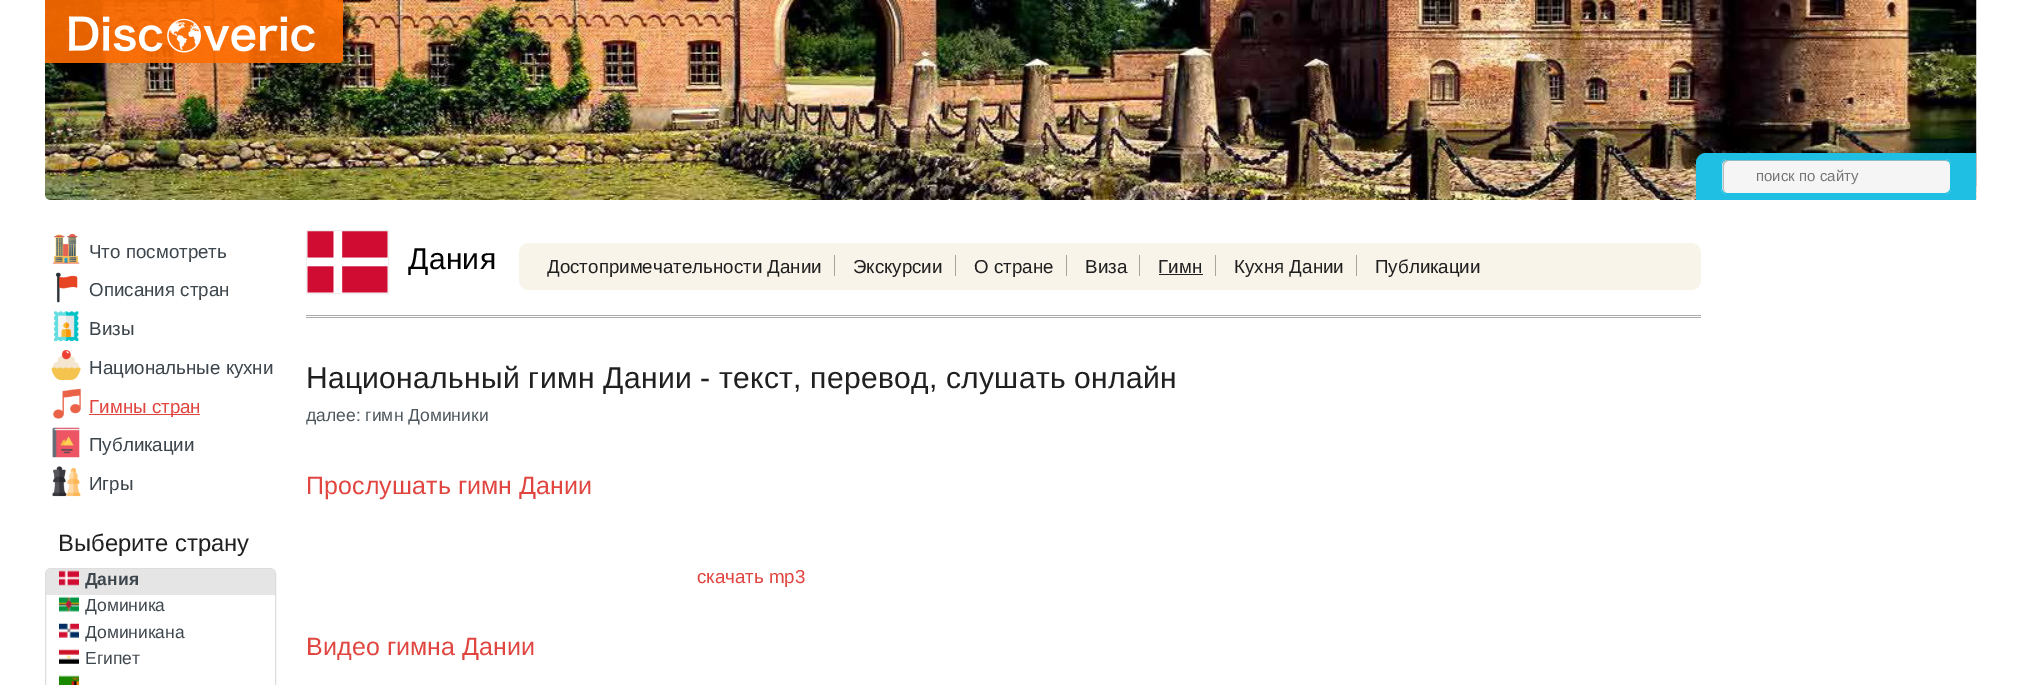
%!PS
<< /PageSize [2021 685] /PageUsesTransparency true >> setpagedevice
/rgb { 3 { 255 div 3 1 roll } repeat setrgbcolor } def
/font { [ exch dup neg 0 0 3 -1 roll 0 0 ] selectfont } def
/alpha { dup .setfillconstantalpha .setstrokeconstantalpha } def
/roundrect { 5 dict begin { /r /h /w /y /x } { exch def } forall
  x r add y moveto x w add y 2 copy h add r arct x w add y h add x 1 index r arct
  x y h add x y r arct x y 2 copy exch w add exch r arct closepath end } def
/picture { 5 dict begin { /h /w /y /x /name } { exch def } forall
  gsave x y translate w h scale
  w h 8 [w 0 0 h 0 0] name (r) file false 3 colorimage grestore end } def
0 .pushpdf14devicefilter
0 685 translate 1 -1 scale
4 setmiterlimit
255 255 255 rgb
0 0 2021 685 rectfill
(img/1.rgb) 45 0 1932 200 picture
0.9 alpha
255 108 0 rgb
45 0 moveto 343 0 lineto 343 59 lineto 343 61 341 63 339 63 curveto 45 63 lineto closepath fill
1 alpha
(img/2.rgb) 69 16 246 37 picture
30 191 226 rgb
1706 153 moveto 1976 153 lineto 1976 200 lineto 1696 200 lineto 1696 163 lineto 1696 157.5 1700.5 153 1706 153 curveto closepath fill
245 245 245 rgb
1721 159 230 35 6 roundrect fill
187 187 187 rgb
1729 161 moveto 1946 161 lineto 1949 162 lineto 1948 161 1946 160 1945 160 curveto 1728 160 lineto 1725 160 1723 162 1723 165 curveto 1723 188 lineto 1723 189 1724 191 1725 192 curveto 1724 189 lineto 1724 166 lineto 1724 163 1726 161 1729 161 curveto closepath fill
30 191 226 rgb
1721.5 159.5 229 34 5.5 roundrect stroke
(img/3.rgb) 52 233 28 31 picture
(img/4.rgb) 55 272 23 31 picture
(img/5.rgb) 53 311 26 31 picture
(img/6.rgb) 51 350 30 30 picture
(img/7.rgb) 53 388 28 31 picture
224 69 64 rgb
89 414 111 1 rectfill
(img/8.rgb) 52 427 28 31 picture
(img/9.rgb) 52 466 29 31 picture
221 221 221 rgb
45.5 568.5 230 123 5.5 roundrect stroke
229 229 229 rgb
51 569 moveto 270 569 lineto 273 569 275 571 275 574 curveto 275 595 lineto 46 595 lineto 46 574 lineto 46 571 48 569 51 569 curveto closepath fill
(img/10.rgb) 59 570 20 16 picture
(img/11.rgb) 59 596 20 16 picture
(img/12.rgb) 59 623 20 15 picture
(img/13.rgb) 59 649 20 15 picture
(img/14.rgb) 59 675 20 10 picture
238 238 238 rgb
306.5 230.5 82 63 rectstroke
(img/15.rgb) 307 231 81 62 picture
248 244 234 rgb
519 243 1182 47 10 roundrect fill
[
  [834 255 1 21 168 164 154]
  [955 255 1 21 168 164 154]
  [1066 255 1 21 168 164 154]
  [1139 255 1 21 168 164 154]
  [1215 255 1 21 168 164 154]
  [1159 274 44 1 32 32 32]
  [1356 255 1 21 168 164 154]
  [306 315 1395 3 171 171 171]
  [306 316 1395 1 255 255 255]
] { aload pop rgb rectfill } forall
/LiberationSans-Regular 15 font
117 117 117 rgb
1756 181 moveto (поиск по сайту) show
/LiberationSans-Regular 18.75 font
61 70 76 rgb
[
  [(Что посмотреть) 89 258]
  [(Описания стран) 89 296]
  [(Визы) 89 335]
  [(Национальные кухни) 89 374]
] { aload pop moveto show } forall
224 69 64 rgb
89 413 moveto (Гимны стран) show
61 70 76 rgb
89 451 moveto (Публикации) show
89 490 moveto (Игры) show
/LiberationSans-Regular 23.75 font
32 32 32 rgb
58 551 moveto (Выберите страну) show
/LiberationSans-Bold 17.5 font
61 70 76 rgb
85 585 moveto (Дания) show
/LiberationSans-Regular 17.5 font
[
  [(Доминика) 85 611]
  [(Доминикана) 85 638]
  [(Египет) 85 664]
] { aload pop moveto show } forall
/LiberationSans-Regular 30 font
0 0 0 rgb
408 269 moveto 0.3 0 (Дания) ashow
/LiberationSans-Regular 18.75 font
32 32 32 rgb
[
  [(Достопримечательности Дании) 547 273]
  [(Экскурсии) 853 273]
  [(О стране) 974 273]
  [(Виза) 1085 273]
  [(Гимн) 1158 273]
  [(Кухня Дании) 1234 273]
  [(Публикации) 1375 273]
] { aload pop moveto show } forall
/LiberationSans-Regular 30 font
306 388 moveto 0.3 0 (Национальный гимн Дании - текст, перевод, слушать онлайн) ashow
/LiberationSans-Regular 17.5 font
77 86 92 rgb
306 421 moveto (далее: гимн Доминики) show
/LiberationSans-Regular 25 font
224 69 64 rgb
306 494 moveto 0.1 0 (Прослушать гимн Дании) ashow
/LiberationSans-Regular 18.75 font
697 583 moveto (скачать mp3) show
/LiberationSans-Regular 25 font
306 655 moveto 0.1 0 (Видео гимна Дании) ashow
.poppdf14devicefilter showpage
